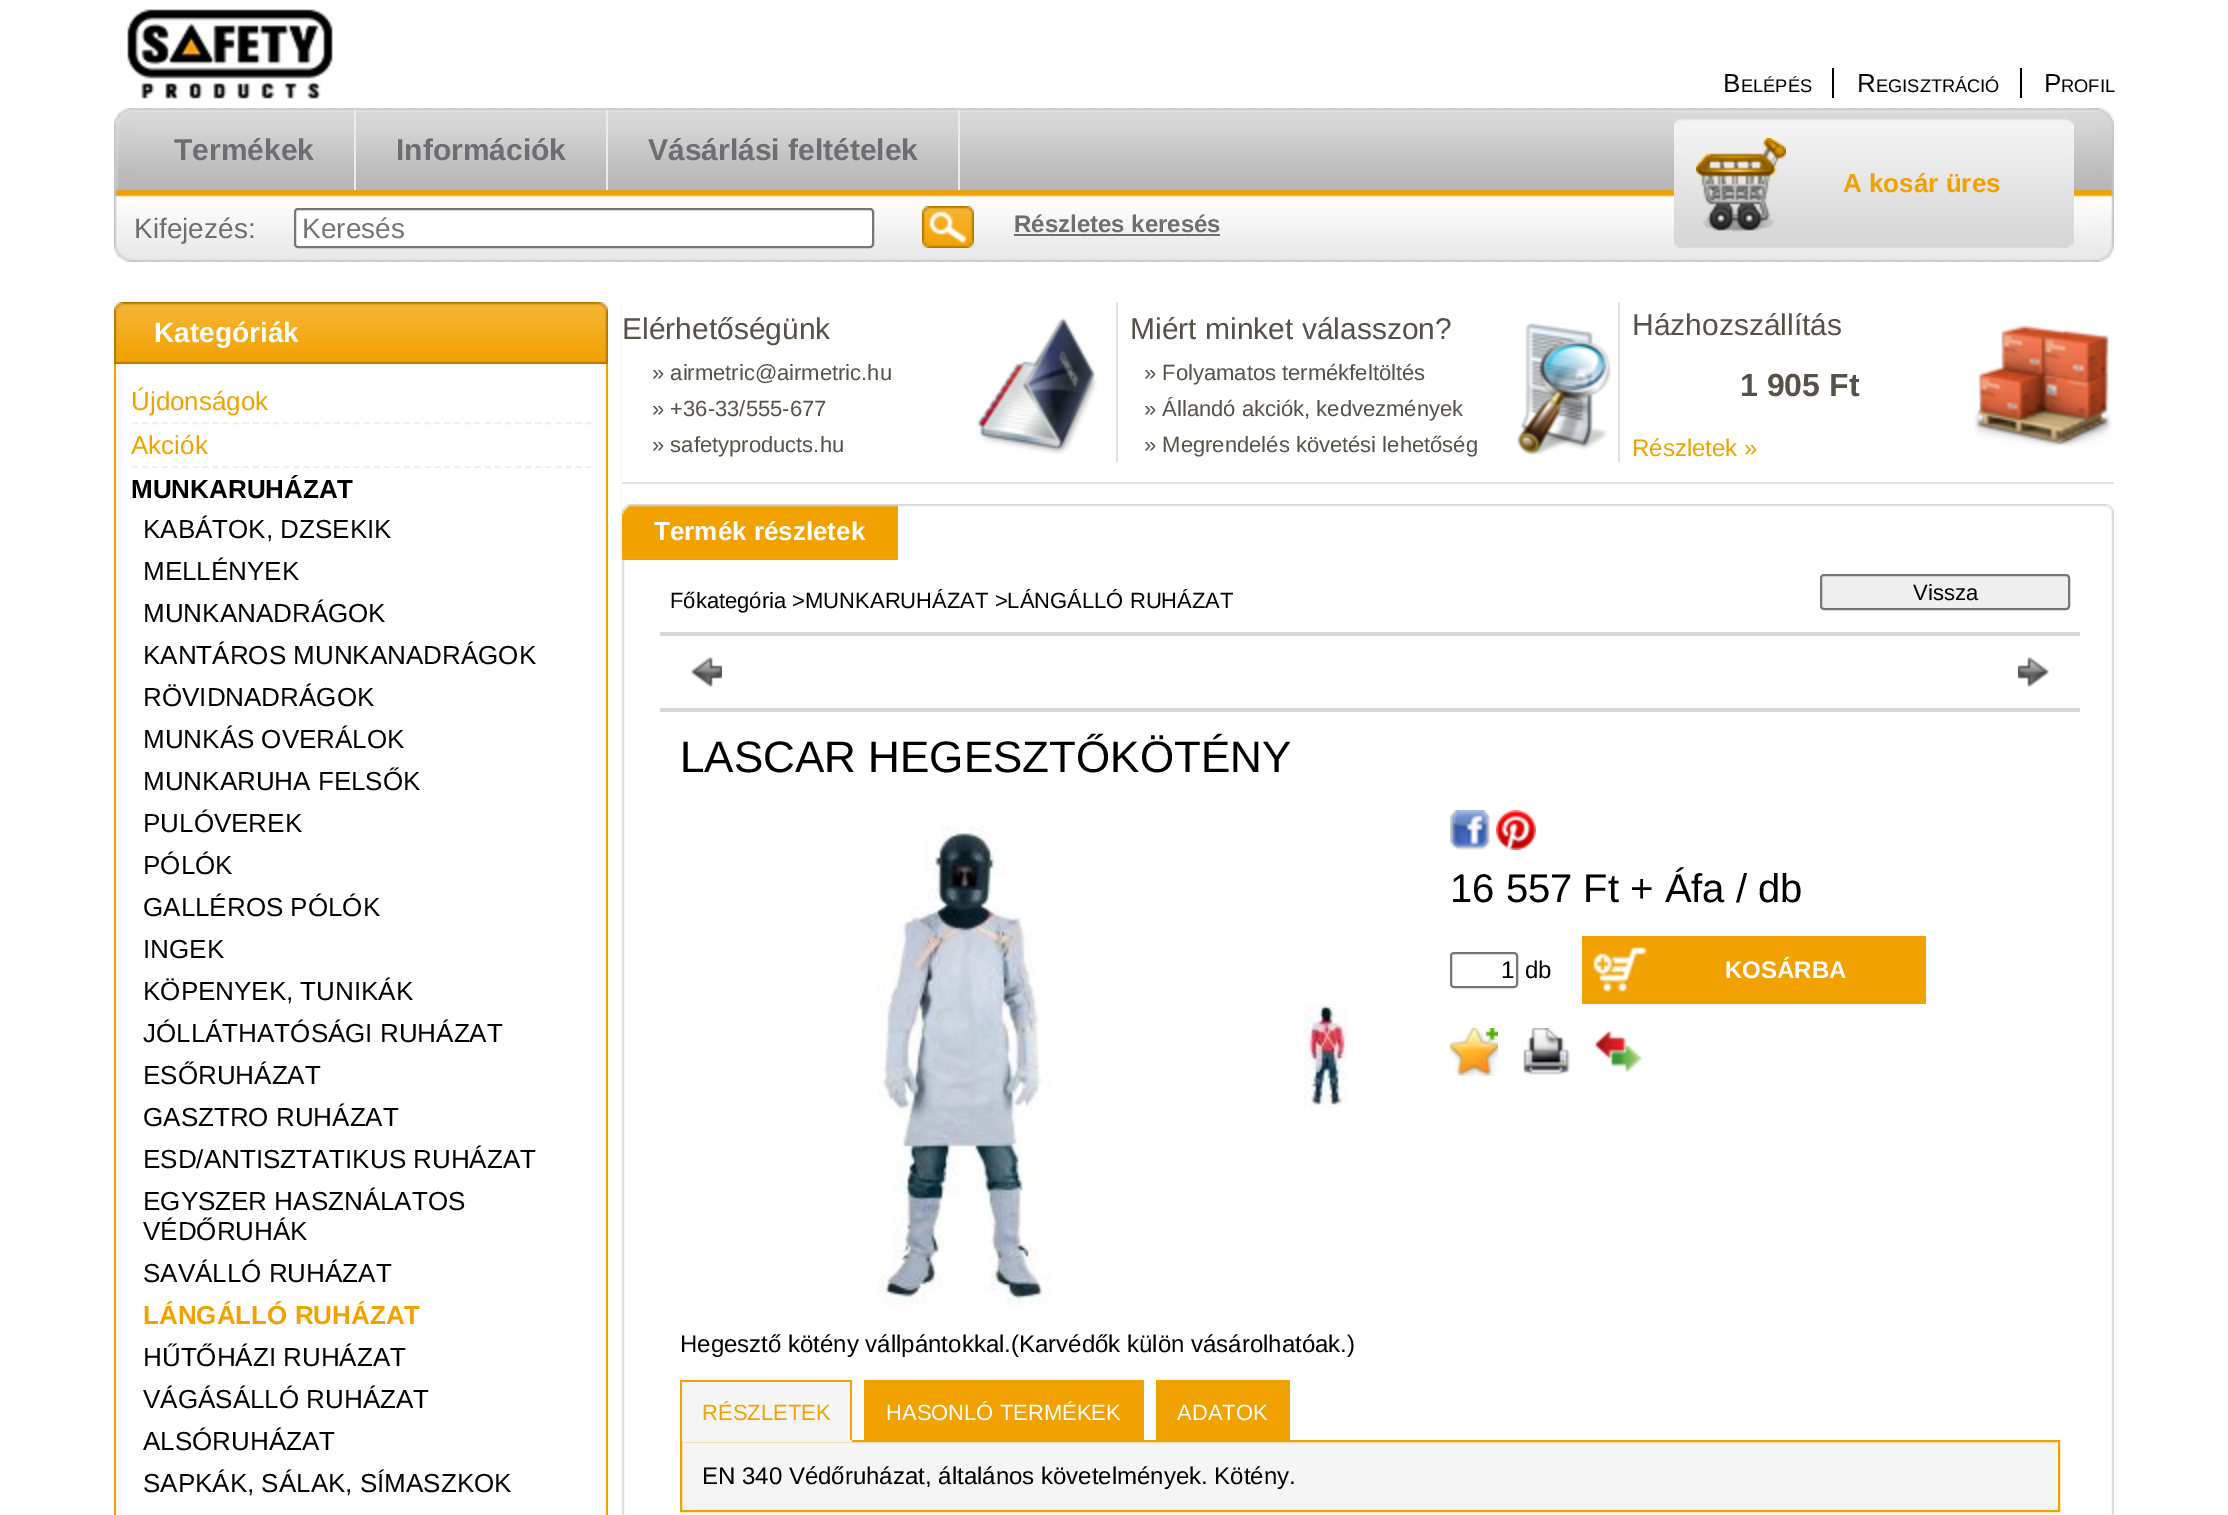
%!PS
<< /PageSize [2228 1515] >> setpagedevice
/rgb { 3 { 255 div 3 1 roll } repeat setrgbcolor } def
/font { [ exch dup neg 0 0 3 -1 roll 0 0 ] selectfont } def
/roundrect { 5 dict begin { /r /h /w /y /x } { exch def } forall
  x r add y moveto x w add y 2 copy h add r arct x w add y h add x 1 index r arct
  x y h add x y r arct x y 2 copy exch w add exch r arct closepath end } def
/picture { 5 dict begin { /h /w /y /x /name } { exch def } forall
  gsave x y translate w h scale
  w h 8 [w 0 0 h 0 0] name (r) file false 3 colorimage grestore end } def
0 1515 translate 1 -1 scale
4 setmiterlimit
255 255 255 rgb
0 0 2228 1515 rectfill
(img/1.rgb) 127 9 206 90 picture
0 0 0 rgb
1832 68 2 30 rectfill
2020 68 2 30 rectfill
(img/2.rgb) 114 108 20 154 picture
(img/3.rgb) 134 108 1960 154 picture
[
  [354 110 2 80 236 236 236]
  [606 110 2 80 236 236 236]
  [958 110 2 80 236 236 236]
] { aload pop rgb rectfill } forall
255 255 255 rgb
295 209 578 38 3 roundrect gsave fill grestore
118 118 118 rgb
2 setlinewidth
stroke
(img/4.rgb) 922 206 52 42 picture
108 110 113 rgb
1014 234 206 2 rectfill
(img/5.rgb) 1674 118 12 130 picture
(img/6.rgb) 1686 118 376 130 picture
(img/7.rgb) 1696 138 90 94 picture
(img/8.rgb) 2062 118 12 130 picture
(img/9.rgb) 2094 108 20 154 picture
(img/10.rgb) 621 302 1493 1213 picture
(img/11.rgb) 114 302 494 62 picture
242 162 0 rgb
606 364 2 1151 rectfill
114 364 2 1151 rectfill
239 239 239 rgb
[6 4.08] 0 setdash
132 423 moveto 592 423 lineto stroke
132 467 moveto 592 467 lineto stroke
255 255 255 rgb
622 302 1492 180 rectfill
224 224 224 rgb
622 482 1492 2 rectfill
(img/12.rgb) 977 317 120 137 picture
1116 302 2 160 rectfill
(img/13.rgb) 1517 323 94 132 picture
1618 302 2 160 rectfill
(img/14.rgb) 1974 325 138 122 picture
255 255 255 rgb
622 484 1492 20 rectfill
242 162 0 rgb
622 505 276 55 rectfill
(img/15.rgb) 622 504 1492 10 picture
239 239 239 rgb
1821 575 248 34 3 roundrect gsave fill grestore
118 118 118 rgb
[] 0 setdash
stroke
214 214 214 rgb
660 632 1420 4 rectfill
(img/16.rgb) 691 657 31 30 picture
(img/17.rgb) 2018 657 31 30 picture
660 708 1420 4 rectfill
(img/18.rgb) 878 825 176 481 picture
(img/19.rgb) 1304 1004 44 104 picture
(img/20.rgb) 1450 810 40 40 picture
(img/21.rgb) 1496 810 40 40 picture
118 118 118 rgb
1451 953 66 34 3 roundrect stroke
242 162 0 rgb
1582 936 344 68 rectfill
(img/22.rgb) 1593 947 54 46 picture
(img/23.rgb) 1450 1028 48 48 picture
(img/24.rgb) 1523 1028 47 47 picture
(img/25.rgb) 1595 1031 47 42 picture
245 245 245 rgb
682 1382 168 58 rectfill
242 162 0 rgb
680 1380 172 2 rectfill
245 245 245 rgb
681 1441 moveto 2059 1441 lineto 2059 1511 lineto 681 1511 lineto closepath gsave fill grestore
242 162 0 rgb
stroke
[
  [850 1380 2 62 242 162 0]
  [680 1440 172 2 245 245 245]
  [680 1380 2 62 242 162 0]
  [864 1380 280 60 242 162 0]
  [1156 1380 134 60 242 162 0]
] { aload pop rgb rectfill } forall
/LiberationSans-Regular 26 font
0 0 0 rgb
1723 92 moveto (B) show
/LiberationSans-Regular 18.25 font
1741 92 moveto (ELÉPÉS) show
/LiberationSans-Regular 26 font
1857 92 moveto (R) show
/LiberationSans-Regular 18.25 font
1876 92 moveto (EGISZTRÁCIÓ) show
/LiberationSans-Regular 26 font
2044 92 moveto (P) show
/LiberationSans-Regular 18.25 font
2061 92 moveto (ROFIL) show
/LiberationSans-Bold 30 font
108 110 113 rgb
[
  [(Termékek) 174 160]
  [(Információk) 396 160]
  [(Vásárlási feltételek) 648 160]
] { aload pop moveto show } forall
/LiberationSans-Regular 28 font
134 238 moveto (Kifejezés:) show
117 117 117 rgb
302 238 moveto (Keresés) show
/LiberationSans-Bold 24 font
108 110 113 rgb
1014 232 moveto (Részletes keresés) show
/LiberationSans-Bold 26 font
242 162 0 rgb
1843 192 moveto (A kosár üres) show
/LiberationSans-Bold 28 font
255 255 255 rgb
154 342 moveto (Kategóriák) show
/LiberationSans-Regular 26 font
242 162 0 rgb
131 410 moveto (Újdonságok) show
131 454 moveto (Akciók) show
/LiberationSans-Bold 26 font
0 0 0 rgb
131 498 moveto (MUNKARUHÁZAT) show
/LiberationSans-Regular 26 font
[
  [(KABÁTOK, DZSEKIK) 143 538]
  [(MELLÉNYEK) 143 580]
  [(MUNKANADRÁGOK) 143 622]
  [(KANTÁROS MUNKANADRÁGOK) 143 664]
  [(RÖVIDNADRÁGOK) 143 706]
  [(MUNKÁS OVERÁLOK) 143 748]
  [(MUNKARUHA FELSŐK) 143 790]
  [(PULÓVEREK) 143 832]
  [(PÓLÓK) 143 874]
  [(GALLÉROS PÓLÓK) 143 916]
  [(INGEK) 143 958]
  [(KÖPENYEK, TUNIKÁK) 143 1000]
  [(JÓLLÁTHATÓSÁGI RUHÁZAT) 143 1042]
  [(ESŐRUHÁZAT) 143 1084]
  [(GASZTRO RUHÁZAT) 143 1126]
  [(ESD/ANTISZTATIKUS RUHÁZAT) 143 1168]
  [(EGYSZER HASZNÁLATOS) 143 1210]
  [(VÉDŐRUHÁK) 143 1240]
  [(SAVÁLLÓ RUHÁZAT) 143 1282]
] { aload pop moveto show } forall
/LiberationSans-Bold 26 font
242 162 0 rgb
143 1324 moveto (LÁNGÁLLÓ RUHÁZAT) show
/LiberationSans-Regular 26 font
0 0 0 rgb
[
  [(HŰTŐHÁZI RUHÁZAT) 143 1366]
  [(VÁGÁSÁLLÓ RUHÁZAT) 143 1408]
  [(ALSÓRUHÁZAT) 143 1450]
  [(SAPKÁK, SÁLAK, SÍMASZKOK) 143 1492]
] { aload pop moveto show } forall
/LiberationSans-Regular 30 font
86 82 71 rgb
622 339 moveto (Elérhetőségünk) show
/LiberationSans-Regular 22 font
[
  [(» airmetric@airmetric.hu) 652 380]
  [(» +36-33/555-677) 652 416]
  [(» safetyproducts.hu) 652 452]
] { aload pop moveto show } forall
/LiberationSans-Regular 30 font
1130 339 moveto (Miért minket válasszon?) show
/LiberationSans-Regular 22 font
[
  [(» Folyamatos termékfeltöltés) 1144 380]
  [(» Állandó akciók, kedvezmények) 1144 416]
  [(» Megrendelés követési lehetőség) 1144 452]
] { aload pop moveto show } forall
/LiberationSans-Regular 30 font
1632 335 moveto (Házhozszállítás) show
/LiberationSans-Bold 32 font
1740 396 moveto (1 905 Ft) show
/LiberationSans-Regular 24 font
242 162 0 rgb
1632 456 moveto (Részletek ») show
/LiberationSans-Bold 26 font
255 255 255 rgb
654 540 moveto (Termék részletek) show
/LiberationSans-Regular 22 font
0 0 0 rgb
670 608 moveto (Főkategória >MUNKARUHÁZAT >LÁNGÁLLÓ RUHÁZAT) show
1913 600 moveto (Vissza) show
/LiberationSans-Regular 44 font
680 772 moveto (LASCAR HEGESZTŐKÖTÉNY) show
/LiberationSans-Regular 40 font
1450 902 moveto (16 557 Ft + Áfa / db) show
/LiberationSans-Regular 24 font
1501 978 moveto (1) show
1525 978 moveto (db) show
/LiberationSans-Bold 24 font
255 255 255 rgb
1725 978 moveto (KOSÁRBA) show
/LiberationSans-Regular 24 font
0 0 0 rgb
680 1352 moveto (Hegesztő kötény vállpántokkal.\(Karvédők külön vásárolhatóak.\)) show
/LiberationSans-Regular 22 font
242 162 0 rgb
702 1420 moveto (RÉSZLETEK) show
255 255 255 rgb
886 1420 moveto (HASONLÓ TERMÉKEK) show
1177 1420 moveto (ADATOK) show
/LiberationSans-Regular 24 font
0 0 0 rgb
702 1484 moveto (EN 340 Védőruházat, általános követelmények. Kötény.) show
showpage
